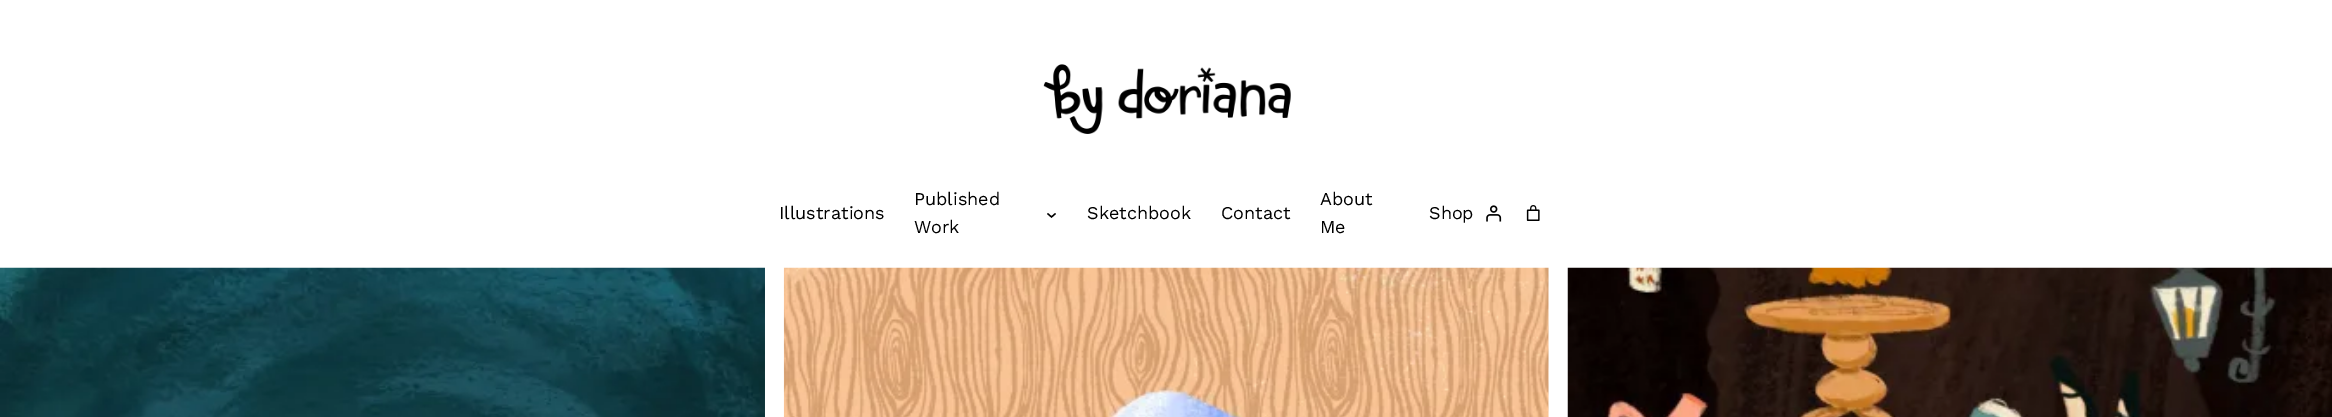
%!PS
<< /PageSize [2332 417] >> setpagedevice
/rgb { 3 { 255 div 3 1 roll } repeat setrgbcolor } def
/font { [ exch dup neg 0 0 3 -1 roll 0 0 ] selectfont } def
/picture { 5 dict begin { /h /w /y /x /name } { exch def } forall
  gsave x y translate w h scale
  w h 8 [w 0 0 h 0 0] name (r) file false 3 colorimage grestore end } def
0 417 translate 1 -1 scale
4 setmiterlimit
255 255 255 rgb
0 0 2332 417 rectfill
(img/1.rgb) 1043 64 248 70 picture
0 0 0 rgb
1.3 setlinewidth
1047.5 213.5 moveto 1051.5 217 lineto 1055.5 213.5 lineto stroke
(img/2.rgb) 1486 205 16 17 picture
(img/3.rgb) 1526 205 14 16 picture
(img/4.rgb) 0 267 765 150 picture
(img/5.rgb) 783 267 766 150 picture
(img/6.rgb) 1567 267 765 150 picture
/WorkSans-Regular 18 font
[
  [(Illustrations) 779 219]
  [(Published) 914 205]
  [(Work) 914 233]
  [(Sketchbook) 1087 219]
  [(Contact) 1221 219]
  [(About) 1320 205]
  [(Me) 1320 233]
  [(Shop) 1429 219]
] { aload pop moveto show } forall
showpage
